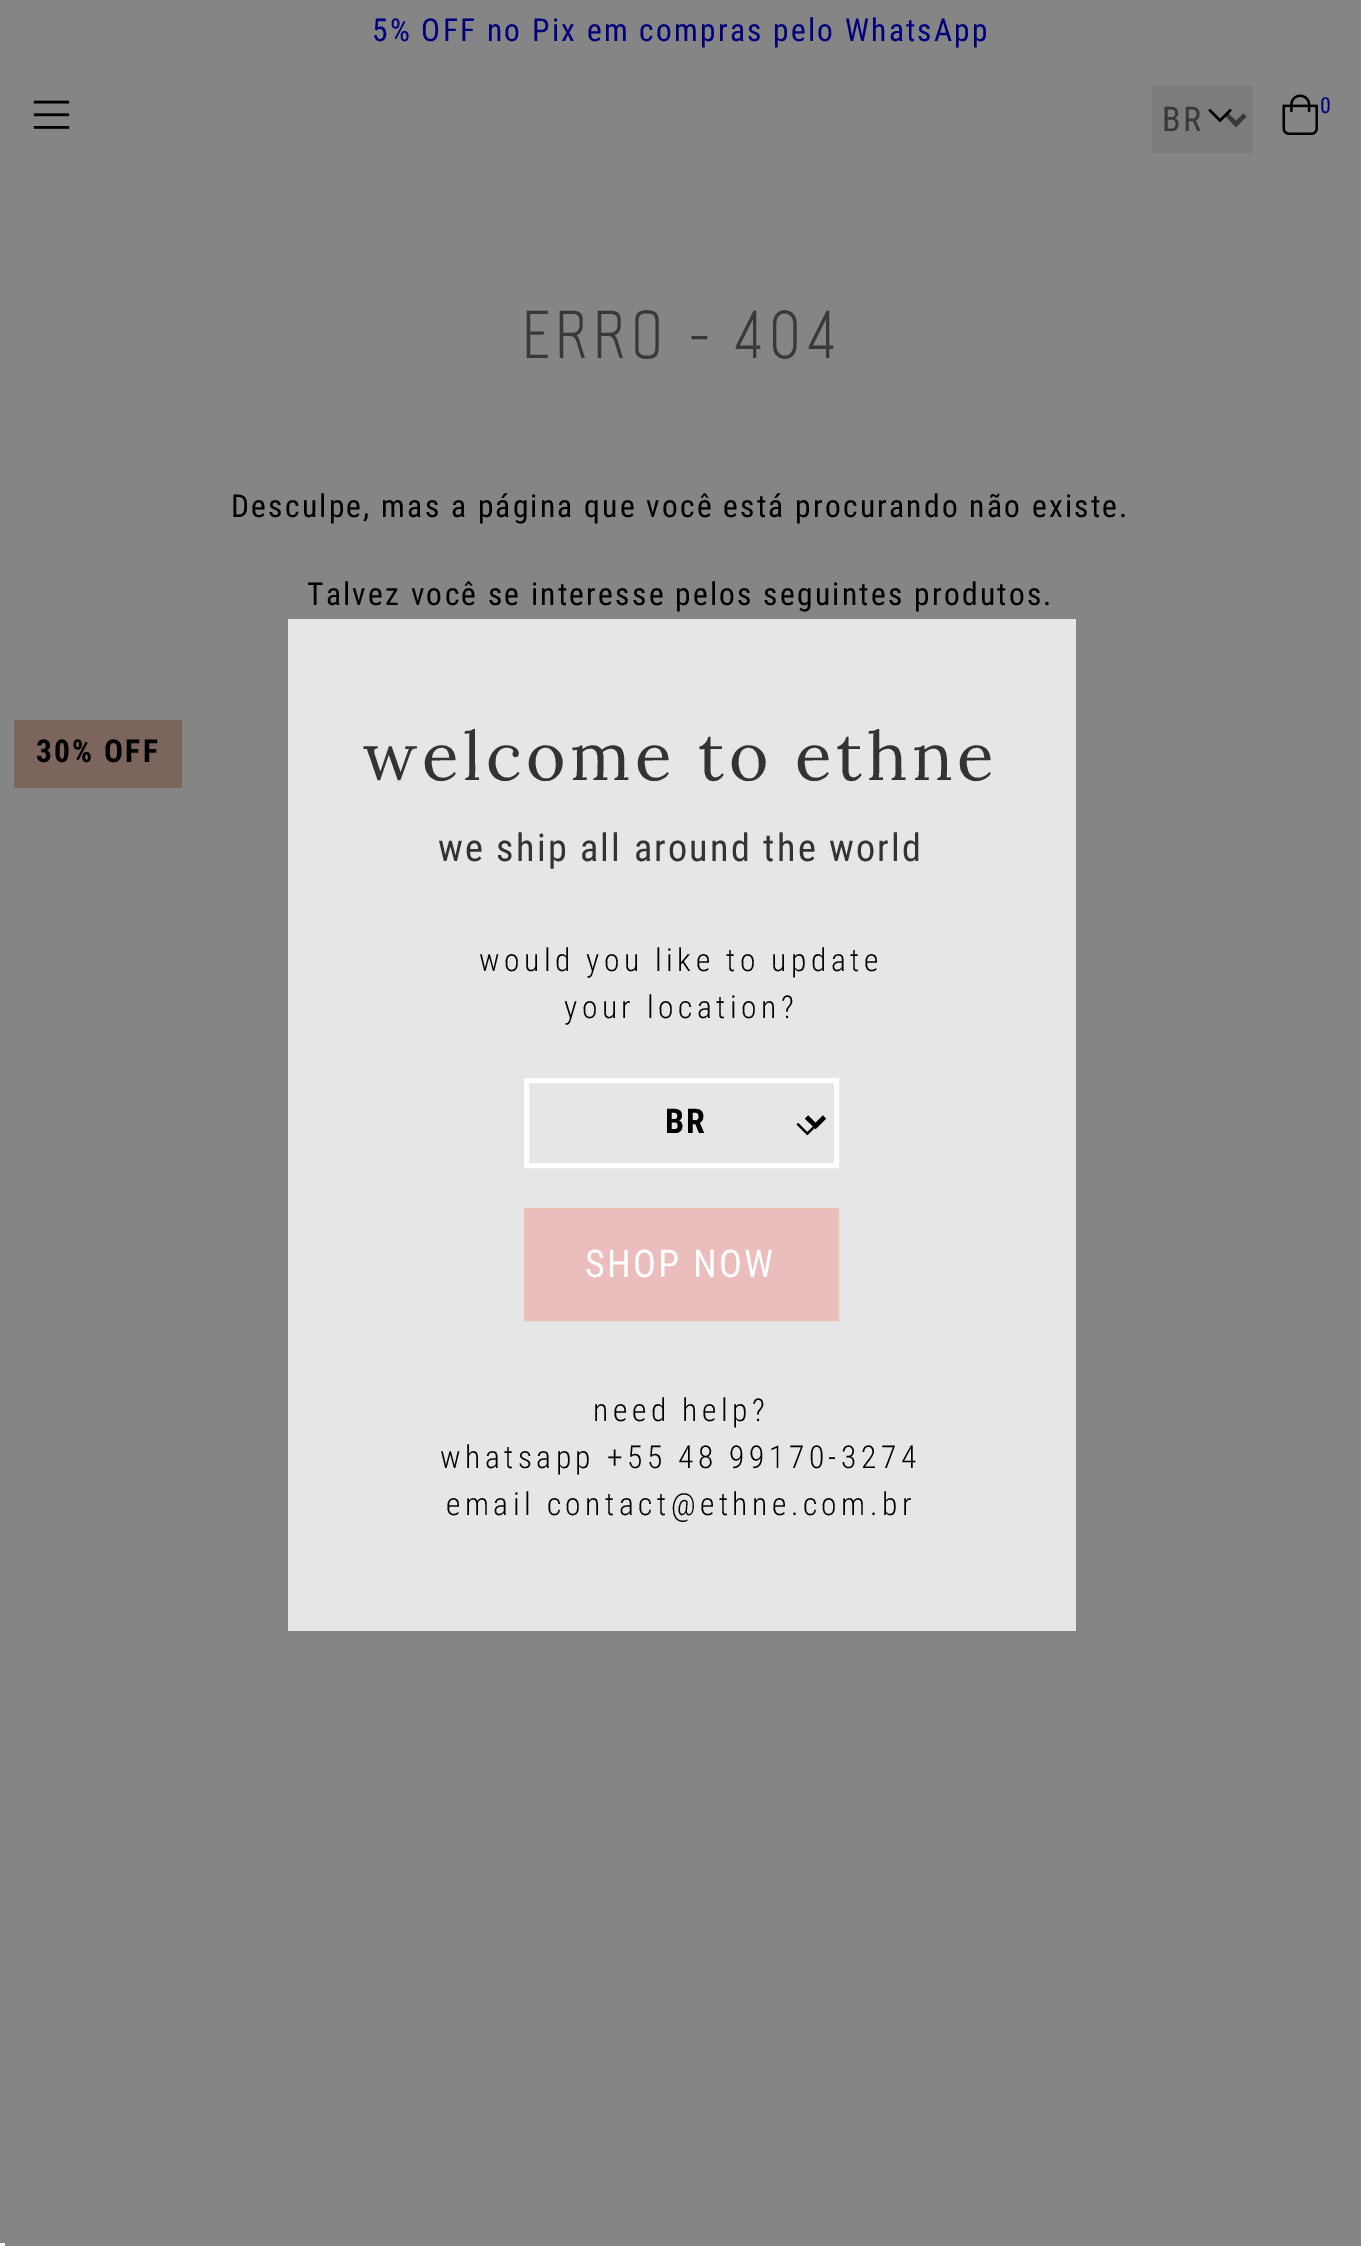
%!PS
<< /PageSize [1361 2246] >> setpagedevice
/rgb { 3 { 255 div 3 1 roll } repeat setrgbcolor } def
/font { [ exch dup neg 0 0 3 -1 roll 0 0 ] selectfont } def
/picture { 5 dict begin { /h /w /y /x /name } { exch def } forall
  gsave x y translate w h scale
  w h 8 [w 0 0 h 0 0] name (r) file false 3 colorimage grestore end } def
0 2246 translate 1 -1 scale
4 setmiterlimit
133 133 133 rgb
0 0 1361 2246 rectfill
(img/1.rgb) 33 100 37 29 picture
(img/2.rgb) 1282 94 36 41 picture
124 124 124 rgb
1152 86 101 67 rectfill
57 57 57 rgb
4.5 setlinewidth
1227 115 moveto 1236 124 lineto 1245 115 lineto stroke
(img/3.rgb) 1208 108 24 15 picture
123 101 93 rgb
14 720 168 68 rectfill
230 230 230 rgb
288 619 788 1012 rectfill
255 255 255 rgb
5 setlinewidth
526.5 1080.5 310 85 rectstroke
0 0 0 rgb
4.5 setlinewidth
806.5 1117 moveto 815.5 1126 lineto 824.5 1117 lineto stroke
(img/4.rgb) 796 1123 19 13 picture
235 189 189 rgb
525 1209 moveto 838 1209 lineto 838 1320 lineto 525 1320 lineto closepath gsave fill grestore
236 195 178 rgb
2 setlinewidth
stroke
245 245 245 rgb
0 2243 5 3 rectfill
/RobotoCondensed-Regular 31.5 font
0 0 124 rgb
372 41 moveto 2.25 0 (5% OFF no Pix em compras pelo WhatsApp) ashow
/RobotoCondensed-Regular 22 font
1320 113 moveto 2.25 0 (0) ashow
/RobotoCondensed-Regular 34 font
57 57 57 rgb
1162 131 moveto 2.25 0 (BR) ashow
/AlumniSansPinstripe-Bold 76.5 font
521 358 moveto 6.75 0 (ERRO - 404) ashow
/RobotoCondensed-Regular 31.5 font
0 0 0 rgb
231 517 moveto 2.25 0 (Desculpe, mas a página que você está procurando não existe.) ashow
307 605 moveto 2.25 0 (Talvez você se interesse pelos seguintes produtos.) ashow
/RobotoCondensed-Bold 31.5 font
36 762 moveto 2.25 0 (30% OFF) ashow
/Lora-Regular 67.5 font
51 51 51 rgb
363 780 moveto 4.5 0 (welcome to ethne) ashow
/RobotoCondensed-Regular 38.25 font
438 861 moveto 2.25 0 (we ship all around the world) ashow
/RobotoCondensed-Light 31.5 font
0 0 0 rgb
479 971 moveto 4.5 0 (would you like to update) ashow
564 1018 moveto 4.5 0 (your location?) ashow
/RobotoCondensed-Bold 34 font
665 1133 moveto 2.25 0 (BR) ashow
/RobotoCondensed-Regular 38.25 font
255 255 255 rgb
585 1277 moveto 2.25 0 (SHOP NOW) ashow
/RobotoCondensed-Light 31.5 font
0 0 0 rgb
593 1421 moveto 4.5 0 (need help?) ashow
440 1468 moveto 4.5 0 (whatsapp +55 48 99170-3274) ashow
446 1515 moveto 4.5 0 (email contact@ethne.com.br) ashow
showpage
